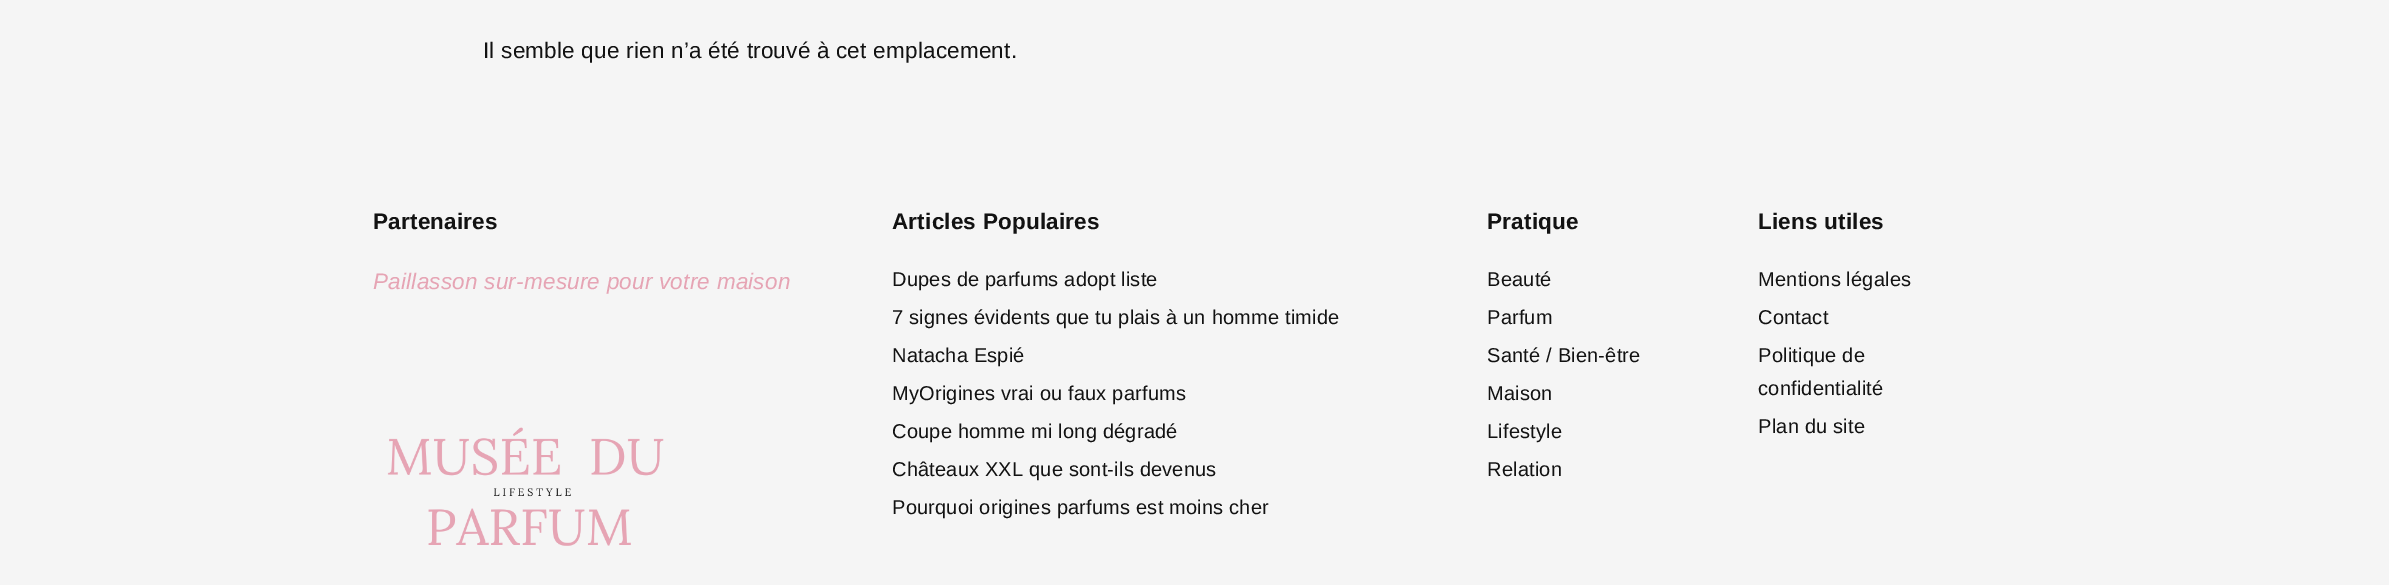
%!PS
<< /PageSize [2389 585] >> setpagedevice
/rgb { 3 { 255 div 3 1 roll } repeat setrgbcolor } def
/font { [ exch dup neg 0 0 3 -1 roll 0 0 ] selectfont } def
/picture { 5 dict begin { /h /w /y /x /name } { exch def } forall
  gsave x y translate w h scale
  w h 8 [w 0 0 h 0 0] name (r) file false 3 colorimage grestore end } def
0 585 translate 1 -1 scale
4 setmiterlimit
245 245 245 rgb
0 0 2389 585 rectfill
(img/1.rgb) 387 427 277 119 picture
/LiberationSans-Regular 22.5 font
18 18 18 rgb
483 58 moveto 0.22 0 (Il semble que rien n’a été trouvé à cet emplacement.) ashow
/LiberationSans-Bold 22.5 font
373 229 moveto 0.2 0 (Partenaires) ashow
/LiberationSans-Italic 22.5 font
230 164 180 rgb
373 289 moveto 0.22 0 (Paillasson sur-mesure pour votre maison) ashow
/LiberationSans-Bold 22.5 font
18 18 18 rgb
892 229 moveto 0.2 0 (Articles Populaires) ashow
/LiberationSans-Regular 20 font
892 286 moveto 0.2 0 (Dupes de parfums adopt liste) ashow
892 324 moveto 0.2 0 (7 signes évidents que tu plais à un homme timide) ashow
892 362 moveto 0.2 0 (Natacha Espié) ashow
892 400 moveto 0.2 0 (MyOrigines vrai ou faux parfums) ashow
892 438 moveto 0.2 0 (Coupe homme mi long dégradé) ashow
892 476 moveto 0.2 0 (Châteaux XXL que sont-ils devenus) ashow
892 514 moveto 0.2 0 (Pourquoi origines parfums est moins cher) ashow
/LiberationSans-Bold 22.5 font
1487 229 moveto 0.2 0 (Pratique) ashow
/LiberationSans-Regular 20 font
1487 286 moveto 0.2 0 (Beauté) ashow
1487 324 moveto 0.2 0 (Parfum) ashow
1487 362 moveto 0.2 0 (Santé / Bien-être) ashow
1487 400 moveto 0.2 0 (Maison) ashow
1487 438 moveto 0.2 0 (Lifestyle) ashow
1487 476 moveto 0.2 0 (Relation) ashow
/LiberationSans-Bold 22.5 font
1758 229 moveto 0.2 0 (Liens utiles) ashow
/LiberationSans-Regular 20 font
1758 286 moveto 0.2 0 (Mentions légales) ashow
1758 324 moveto 0.2 0 (Contact) ashow
1758 362 moveto 0.2 0 (Politique de) ashow
1758 395 moveto 0.2 0 (confidentialité) ashow
1758 433 moveto 0.2 0 (Plan du site) ashow
showpage
